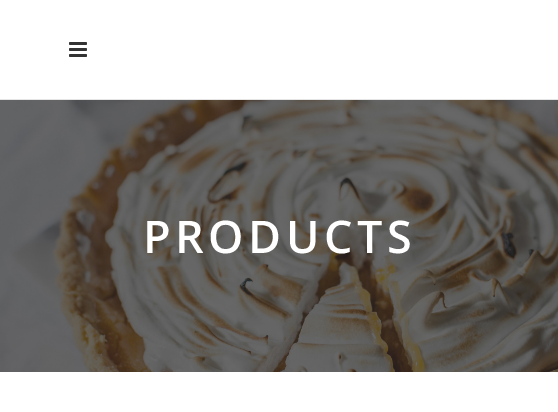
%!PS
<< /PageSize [558 412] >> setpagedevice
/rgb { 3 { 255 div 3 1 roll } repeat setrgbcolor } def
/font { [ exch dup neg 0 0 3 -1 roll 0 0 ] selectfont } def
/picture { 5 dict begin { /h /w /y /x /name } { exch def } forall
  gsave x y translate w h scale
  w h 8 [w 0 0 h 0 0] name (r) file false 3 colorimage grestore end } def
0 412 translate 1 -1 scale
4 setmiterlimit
255 255 255 rgb
0 0 558 412 rectfill
229 229 229 rgb
0 99 558 1 rectfill
(img/1.rgb) 69 42 18 15 picture
(img/2.rgb) 0 100 558 272 picture
/OpenSans-SemiBold 45 font
255 255 255 rgb
143 253 moveto 4.5 0 (PRODUCTS) ashow
showpage
